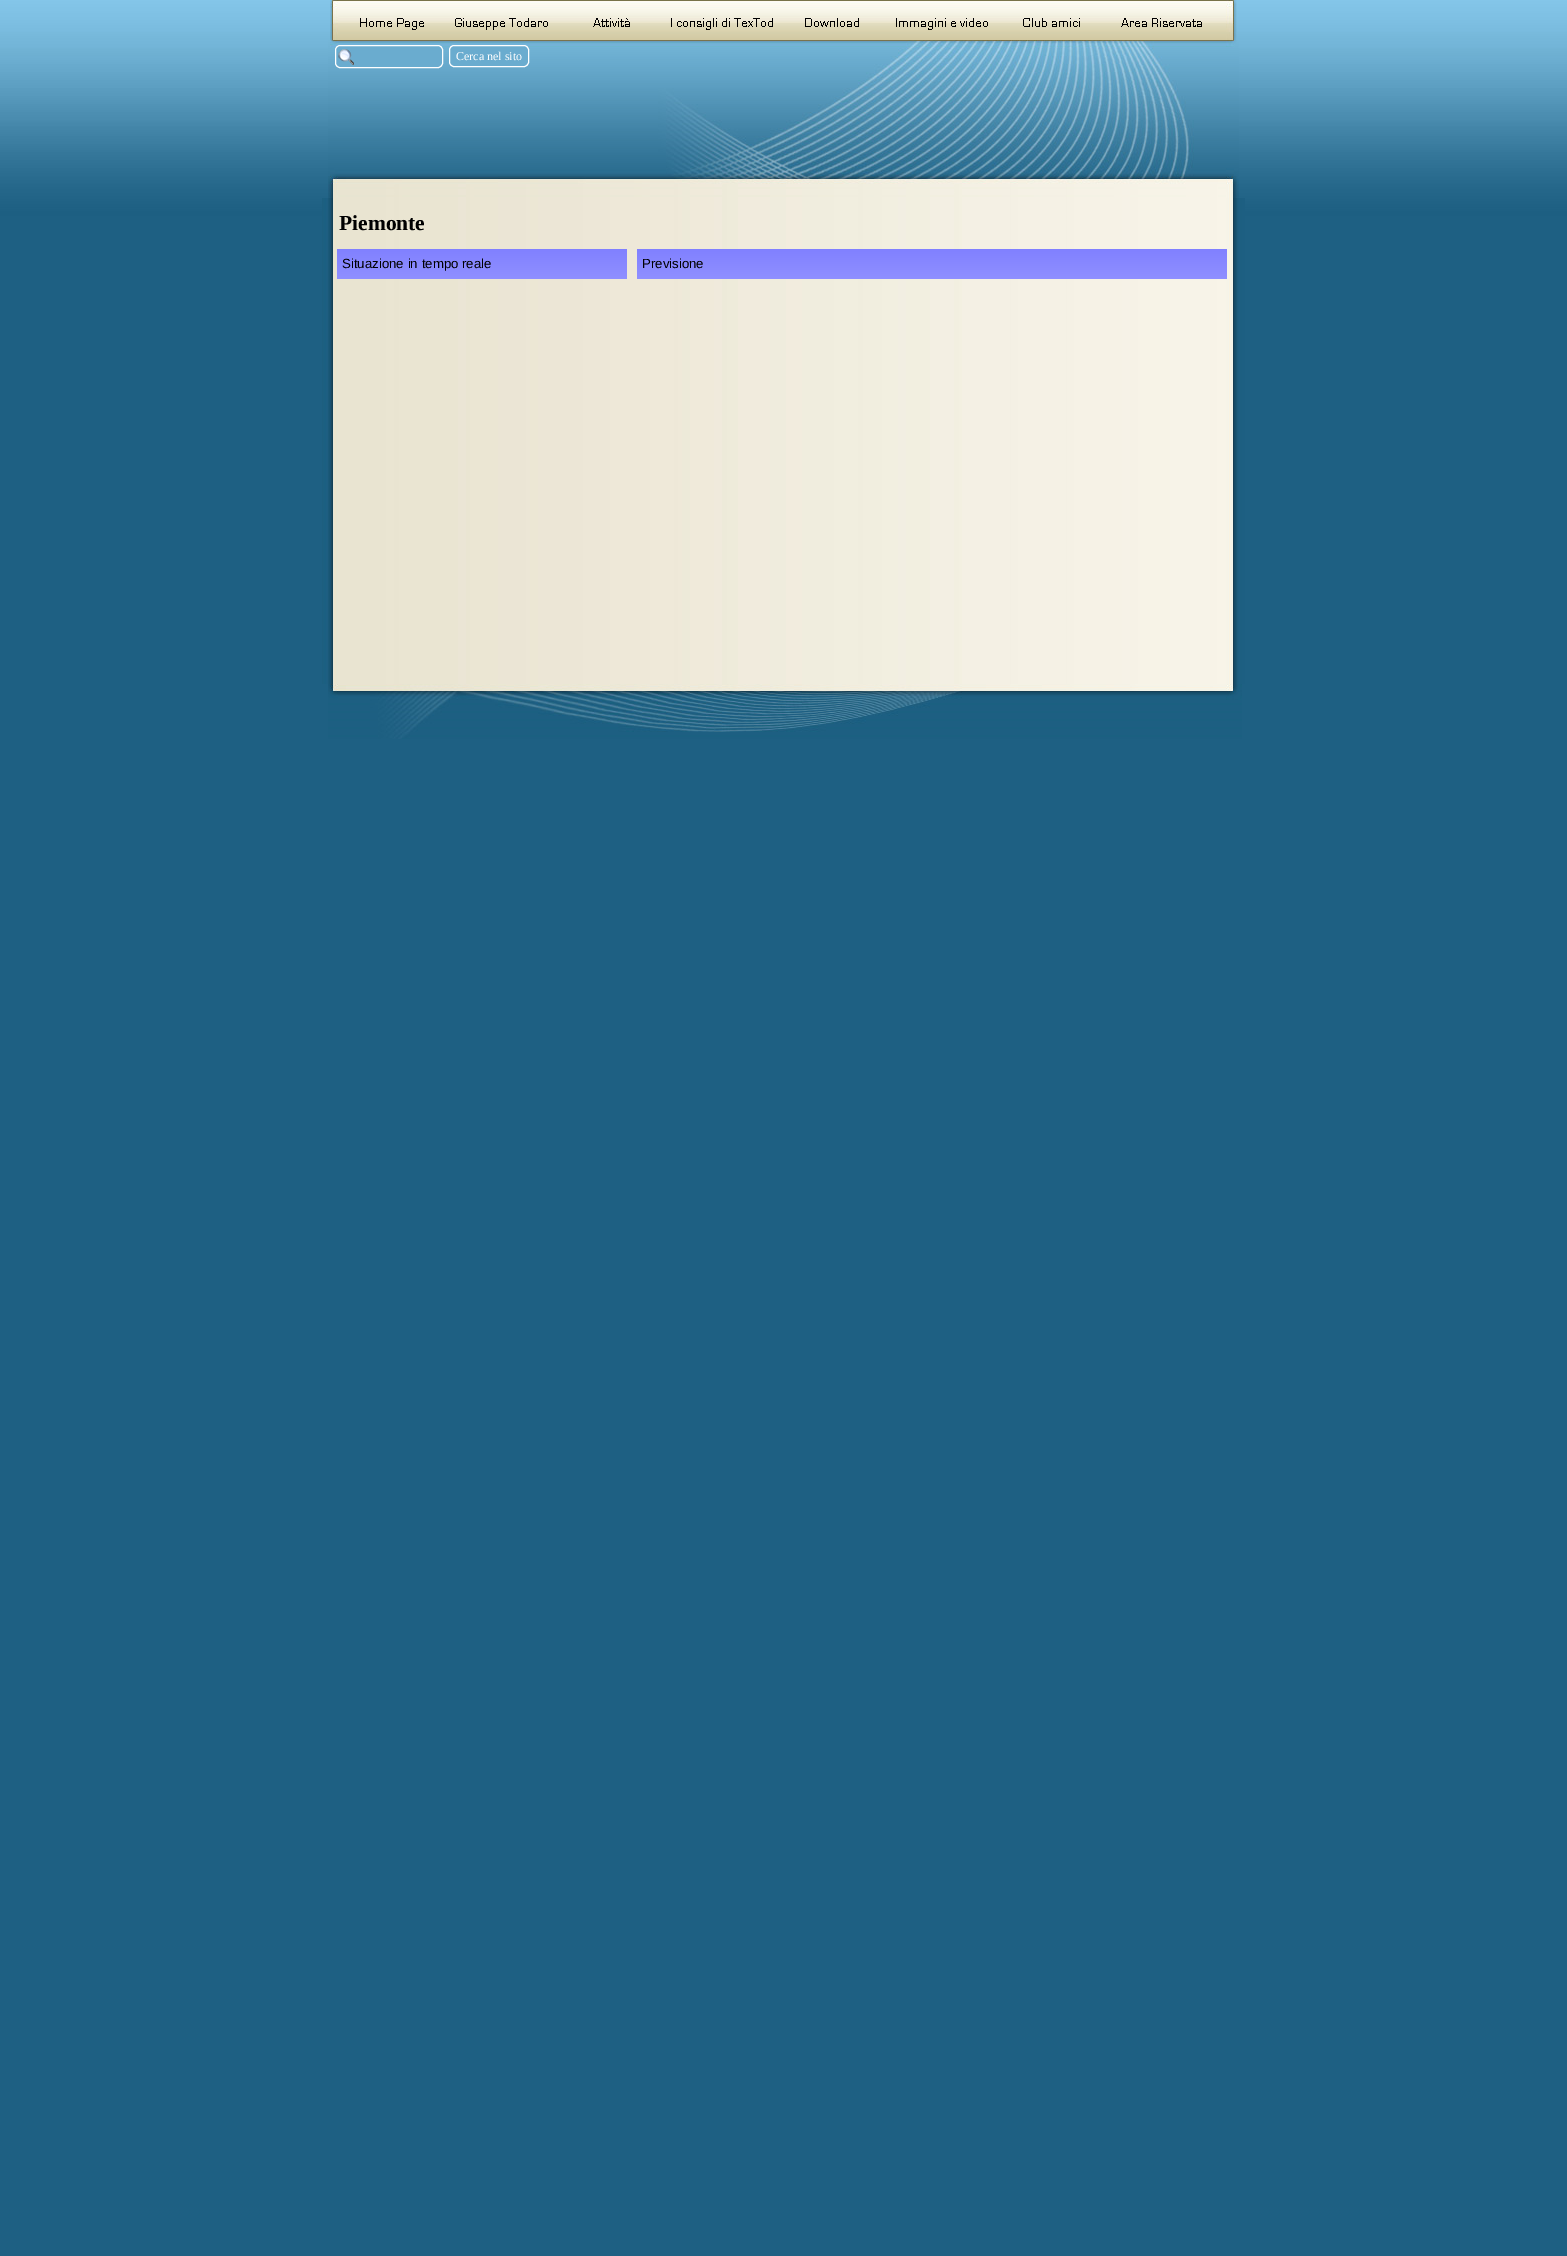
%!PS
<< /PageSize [1567 2256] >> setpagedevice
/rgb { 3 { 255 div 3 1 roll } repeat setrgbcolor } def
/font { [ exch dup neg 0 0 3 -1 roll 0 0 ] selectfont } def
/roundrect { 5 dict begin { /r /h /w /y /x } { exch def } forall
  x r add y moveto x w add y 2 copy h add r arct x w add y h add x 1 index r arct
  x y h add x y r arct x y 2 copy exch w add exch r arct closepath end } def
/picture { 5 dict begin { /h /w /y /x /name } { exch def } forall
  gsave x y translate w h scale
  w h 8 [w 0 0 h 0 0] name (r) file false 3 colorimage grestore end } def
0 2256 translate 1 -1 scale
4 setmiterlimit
255 255 255 rgb
0 0 1567 2256 rectfill
(img/1.rgb) 0 0 1567 2256 picture
(img/2.rgb) 330 0 907 40 picture
(img/3.rgb) 360 18 64 12 picture
(img/4.rgb) 455 18 93 12 picture
(img/5.rgb) 593 18 37 9 picture
(img/6.rgb) 671 18 102 12 picture
(img/7.rgb) 805 18 54 9 picture
(img/8.rgb) 896 18 92 12 picture
(img/9.rgb) 1023 18 57 9 picture
(img/10.rgb) 1121 18 81 9 picture
(img/11.rgb) 328 40 911 158 picture
106 172 207 rgb
335 45 108 23 5 roundrect fill
(img/12.rgb) 338 49 16 16 picture
255 255 255 rgb
335.5 45.5 107 22 4.5 roundrect stroke
106 172 207 rgb
449.5 45.5 79 21 4.5 roundrect gsave fill grestore
255 255 255 rgb
stroke
(img/13.rgb) 322 198 923 486 picture
(img/14.rgb) 337 249 290 30 picture
(img/15.rgb) 637 249 590 30 picture
(img/16.rgb) 328 684 914 55 picture
/LiberationSerif-Regular 12 font
456 60 moveto (Cerca nel sito) show
/LiberationSerif-Bold 21.5 font
0 0 0 rgb
339 230 moveto (Piemonte) show
/LiberationSans-Regular 13.25 font
342 268 moveto (Situazione in tempo reale) show
642 268 moveto (Previsione) show
showpage
